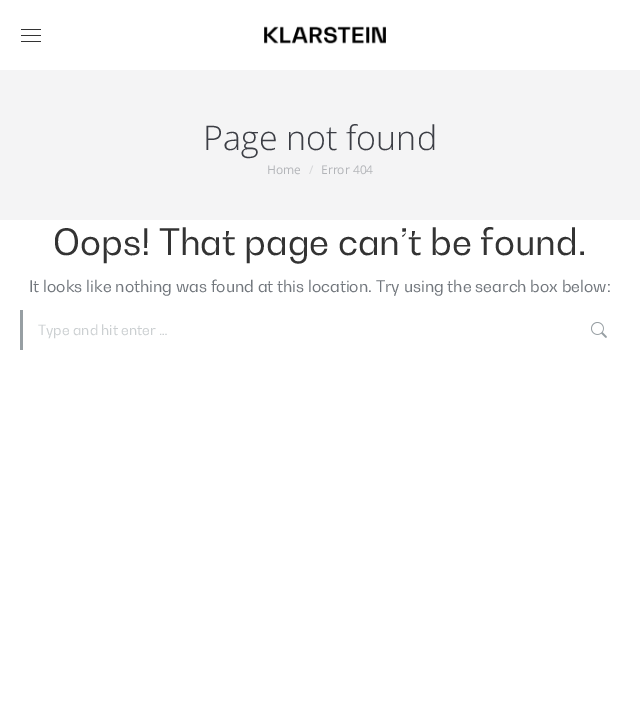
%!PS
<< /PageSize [640 717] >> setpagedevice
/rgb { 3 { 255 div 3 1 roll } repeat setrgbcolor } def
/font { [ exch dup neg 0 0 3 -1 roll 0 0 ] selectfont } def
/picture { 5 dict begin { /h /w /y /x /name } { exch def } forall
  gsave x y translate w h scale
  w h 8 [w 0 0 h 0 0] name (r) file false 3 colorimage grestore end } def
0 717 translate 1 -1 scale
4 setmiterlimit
255 255 255 rgb
0 0 640 717 rectfill
[
  [21 29 20 1 51 51 51]
  [21 35 20 1 51 51 51]
  [21 41 20 1 51 51 51]
] { aload pop rgb rectfill } forall
(img/1.rgb) 264 26 122 18 picture
244 244 245 rgb
0 70 640 150 rectfill
151 159 163 rgb
20 310 3 40 rectfill
(img/2.rgb) 591 322 16 16 picture
/OpenSans-Light 34 font
60 62 69 rgb
203 150 moveto (Page not found) show
/OpenSans-Regular 12 font
179 181 185 rgb
267 174 moveto (Home) show
212 213 215 rgb
309 174 moveto (/) show
179 181 185 rgb
321 174 moveto (Error 404) show
/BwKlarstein-Regular 36 font
51 51 51 rgb
53 255 moveto (Oops! That page can’t be found.) show
/BwKlarstein-Regular 16 font
114 119 125 rgb
29 292 moveto (It looks like nothing was found at this location. Try using the search box below:) show
/BwKlarstein-Regular 14 font
203 207 209 rgb
38 335 moveto (Type and hit enter …) show
showpage
